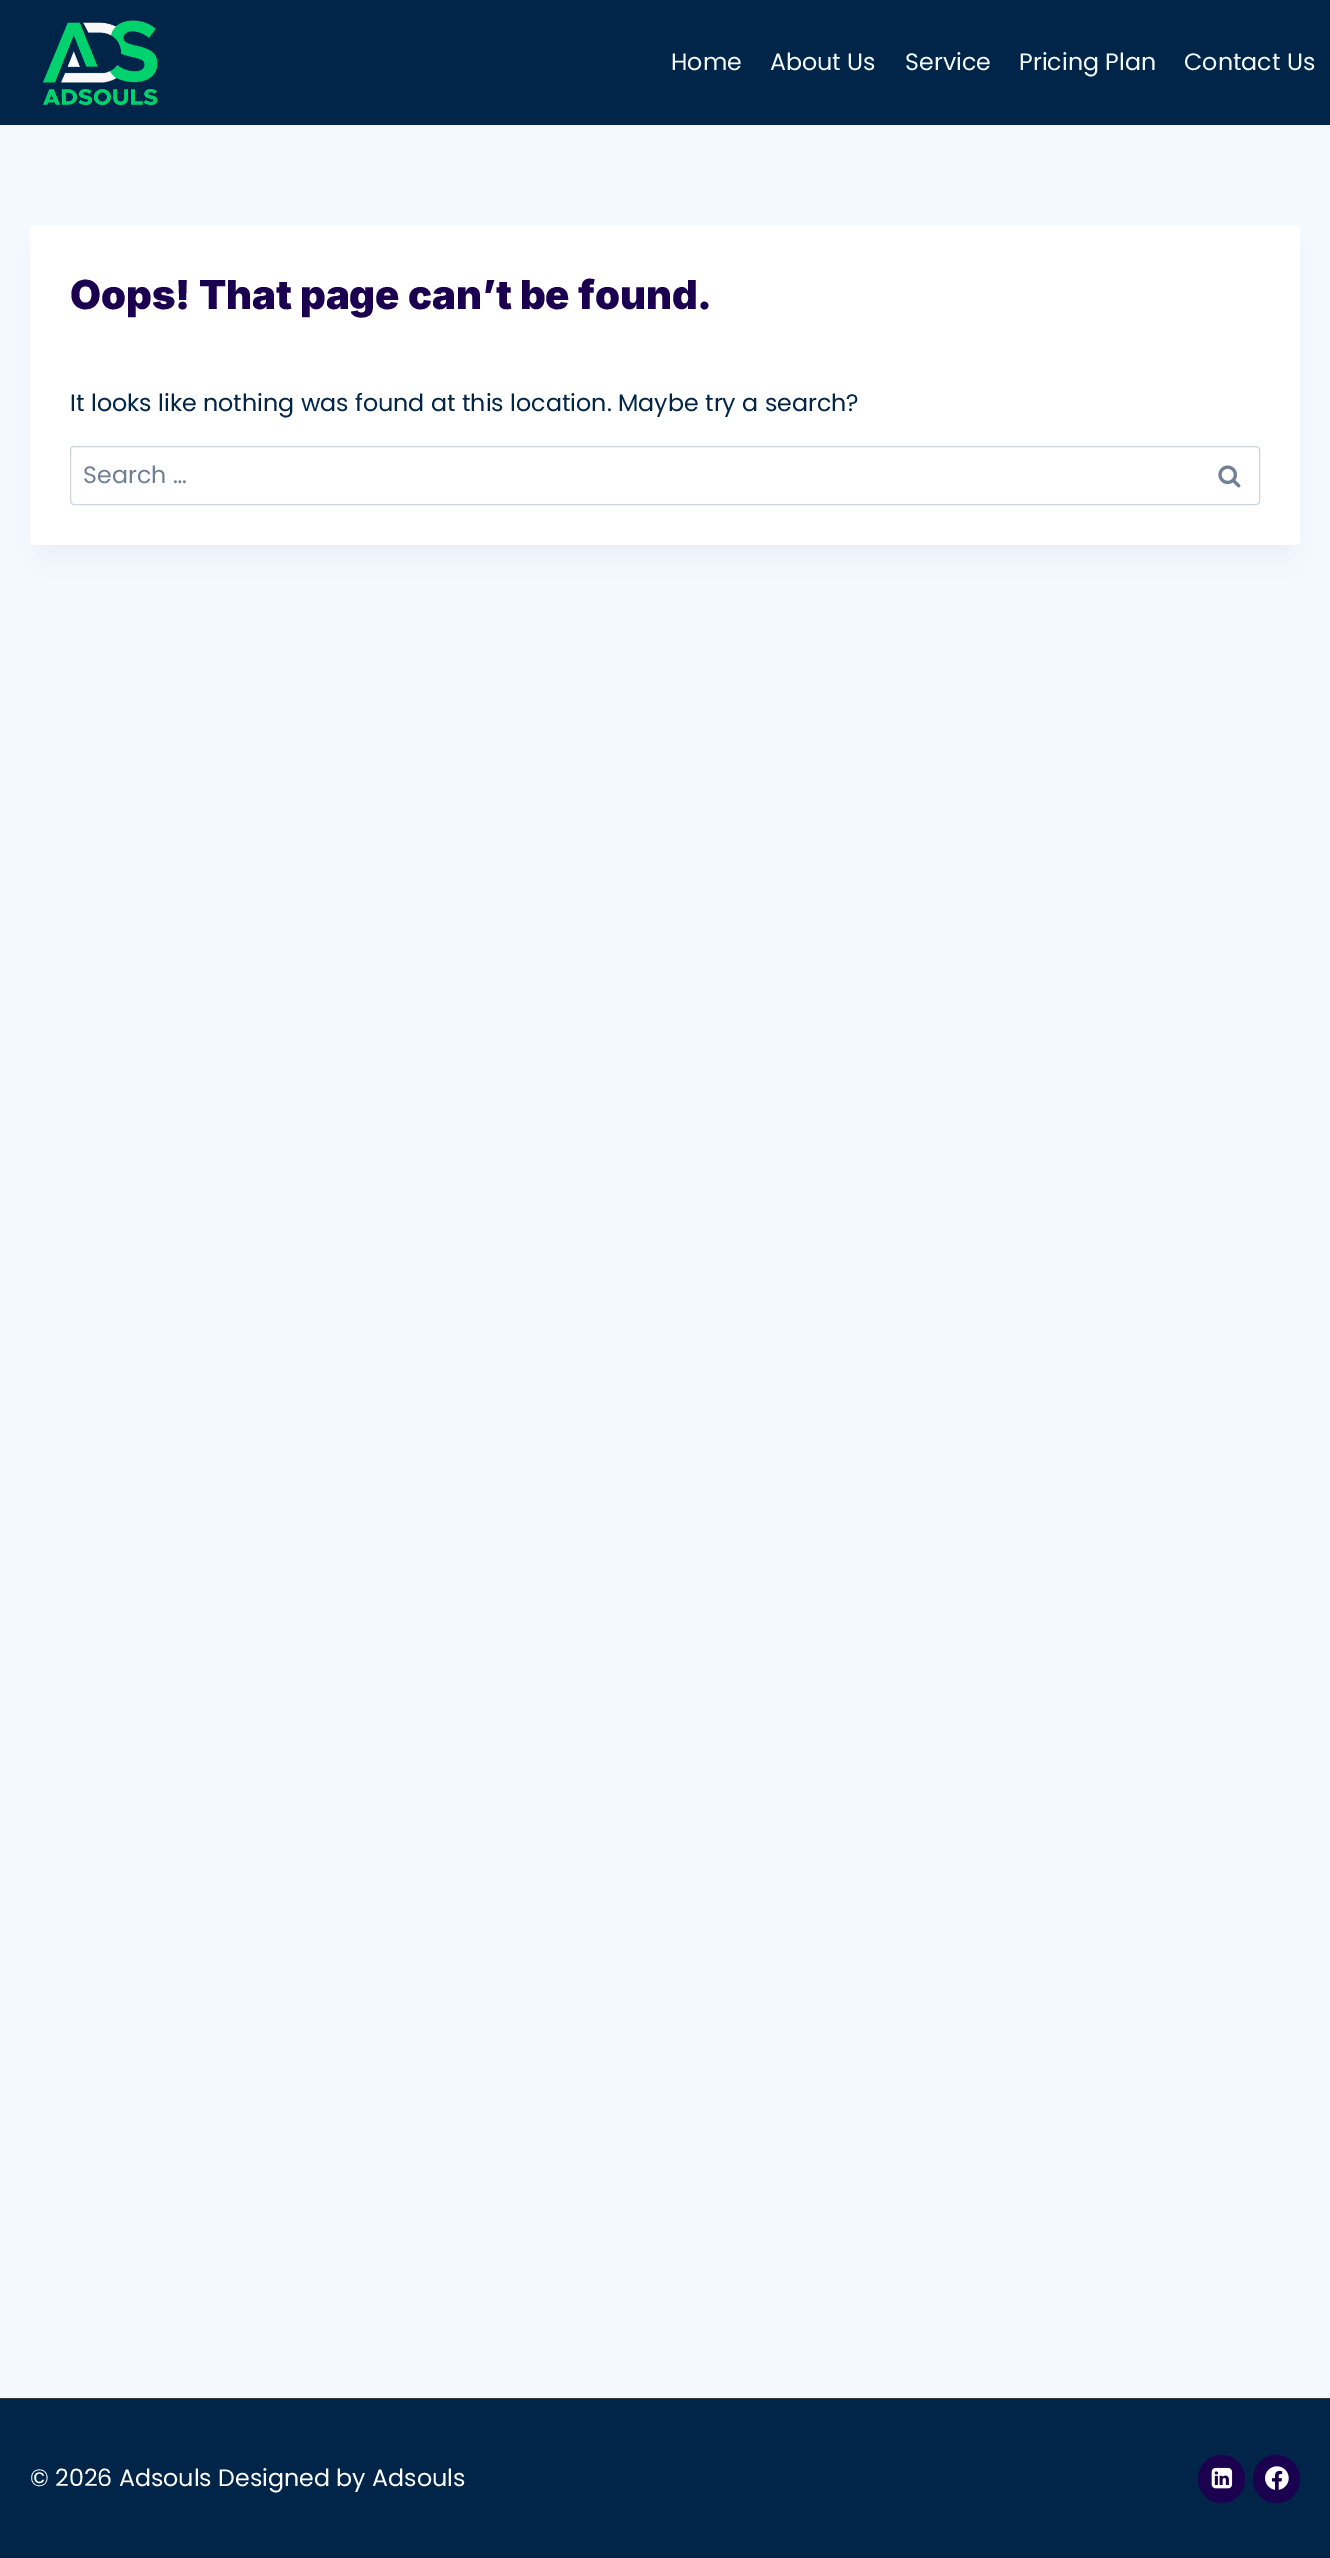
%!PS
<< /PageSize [1330 2558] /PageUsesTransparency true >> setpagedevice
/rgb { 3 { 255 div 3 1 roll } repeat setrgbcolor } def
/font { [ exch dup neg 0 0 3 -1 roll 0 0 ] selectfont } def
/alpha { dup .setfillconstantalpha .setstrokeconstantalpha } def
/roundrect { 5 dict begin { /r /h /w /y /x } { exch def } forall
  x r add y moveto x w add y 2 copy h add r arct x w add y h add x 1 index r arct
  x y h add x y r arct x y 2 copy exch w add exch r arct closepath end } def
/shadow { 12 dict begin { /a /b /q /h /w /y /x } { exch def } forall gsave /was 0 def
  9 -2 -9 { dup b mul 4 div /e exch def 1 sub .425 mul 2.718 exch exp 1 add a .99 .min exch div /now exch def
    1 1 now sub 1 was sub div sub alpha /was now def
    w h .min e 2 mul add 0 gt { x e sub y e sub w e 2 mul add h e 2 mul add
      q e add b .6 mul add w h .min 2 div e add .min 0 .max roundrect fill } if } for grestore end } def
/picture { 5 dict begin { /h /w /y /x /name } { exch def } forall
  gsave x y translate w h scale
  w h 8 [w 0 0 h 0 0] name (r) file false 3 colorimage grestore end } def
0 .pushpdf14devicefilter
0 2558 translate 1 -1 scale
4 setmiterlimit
244 249 255 rgb
0 0 1330 2558 rectfill
0 37 73 rgb
0 0 1330 125 rectfill
(img/1.rgb) 43 20 115 86 picture
0 0 0 rgb
43 256 1245 295 0 15.5 0.05 shadow
255 255 255 rgb
30 225 1270 320 5 roundrect fill
203 213 224 rgb
70.5 446.5 1189 58 3.5 roundrect stroke
(img/2.rgb) 1218 465 23 23 picture
0 37 73 rgb
0 2399 1330 159 rectfill
57 56 65 rgb
0 2398 1330 1 rectfill
27 0 79 rgb
1198 2455 47 48 23.5 roundrect fill
(img/3.rgb) 1211 2467 22 22 picture
1253 2455 47 48 23.5 roundrect fill
(img/4.rgb) 1265 2466 24 24 picture
/Poppins-Regular 23.75 font
244 249 255 rgb
[
  [(Home) 671 70]
  [(About Us) 770 70]
  [(Service) 905 70]
  [(Pricing Plan) 1019 70]
  [(Contact Us) 1184 70]
] { aload pop moveto show } forall
/Inter-Black 40 font
27 0 79 rgb
70 309 moveto (Oops! That page can’t be found.) show
/Poppins-Regular 23.75 font
0 37 73 rgb
70 411 moveto (It looks like nothing was found at this location. Maybe try a search?) show
113 128 150 rgb
83 483 moveto (Search …) show
255 255 255 rgb
30 2486 moveto (© 2026 Adsouls Designed by Adsouls) show
.poppdf14devicefilter showpage
